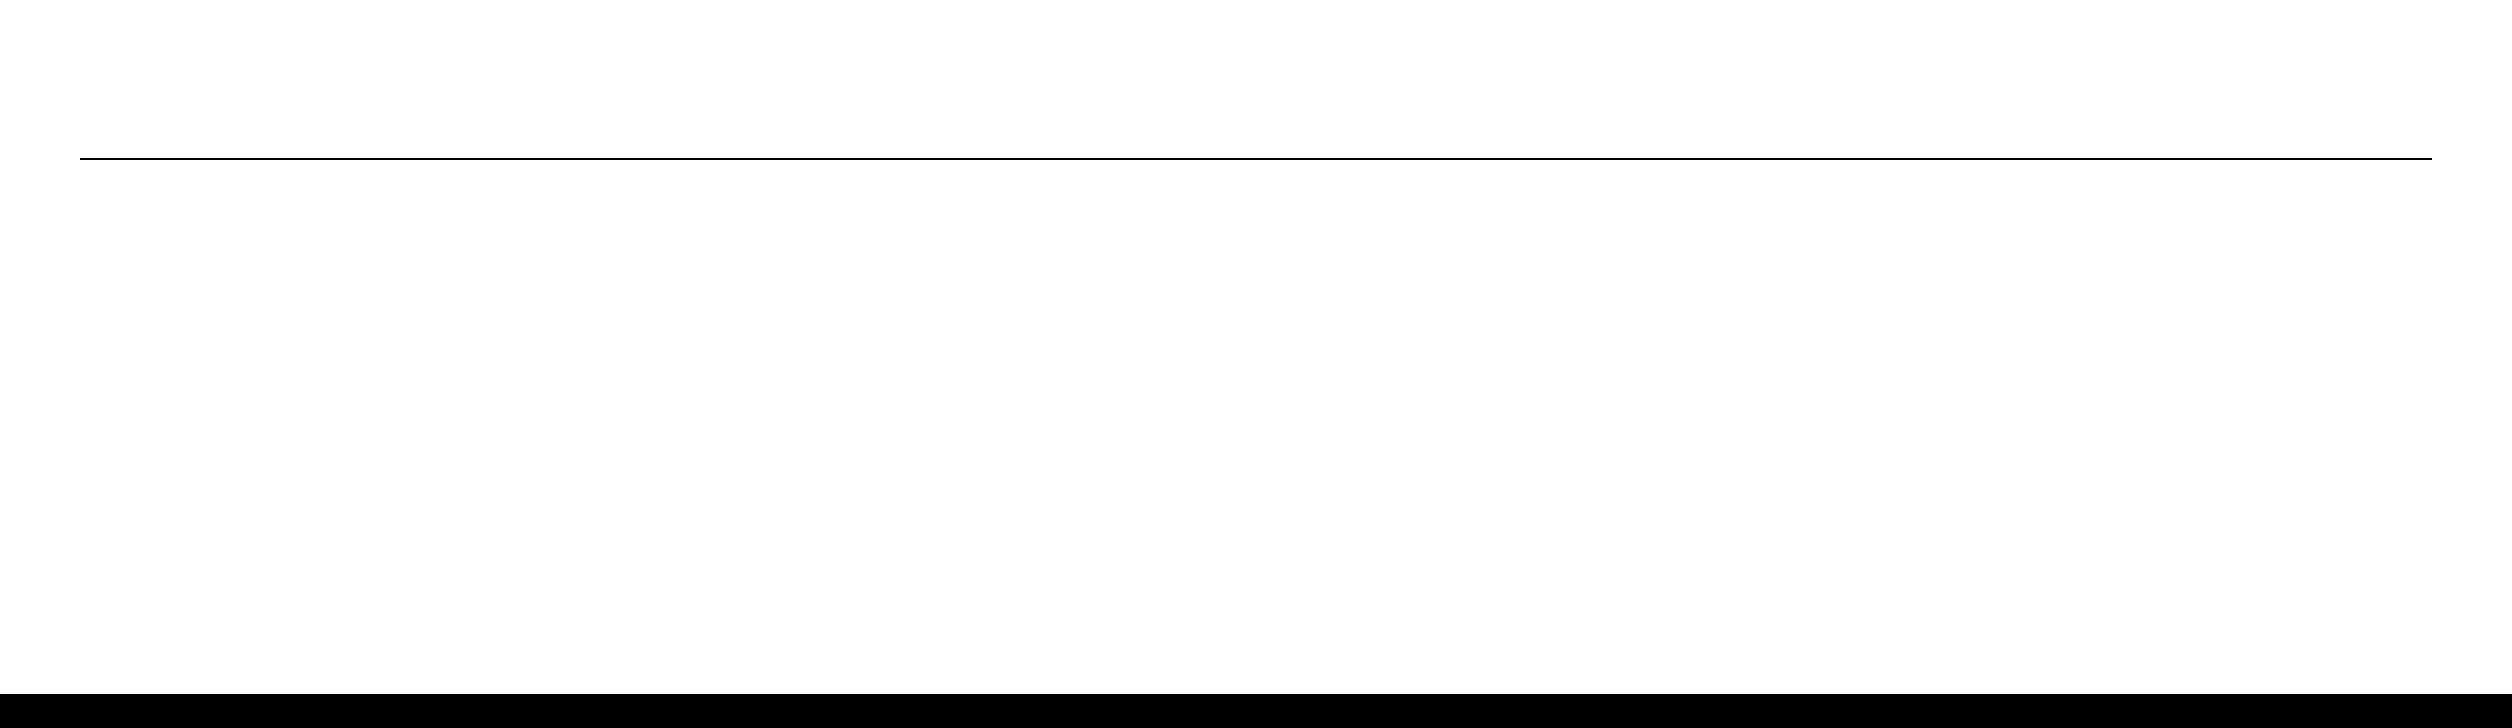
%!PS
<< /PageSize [2512 728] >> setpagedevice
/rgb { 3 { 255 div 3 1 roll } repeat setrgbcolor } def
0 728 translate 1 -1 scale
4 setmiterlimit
255 255 255 rgb
0 0 2512 728 rectfill
0 0 0 rgb
80 158 2352 2 rectfill
0 694 2512 34 rectfill
showpage
